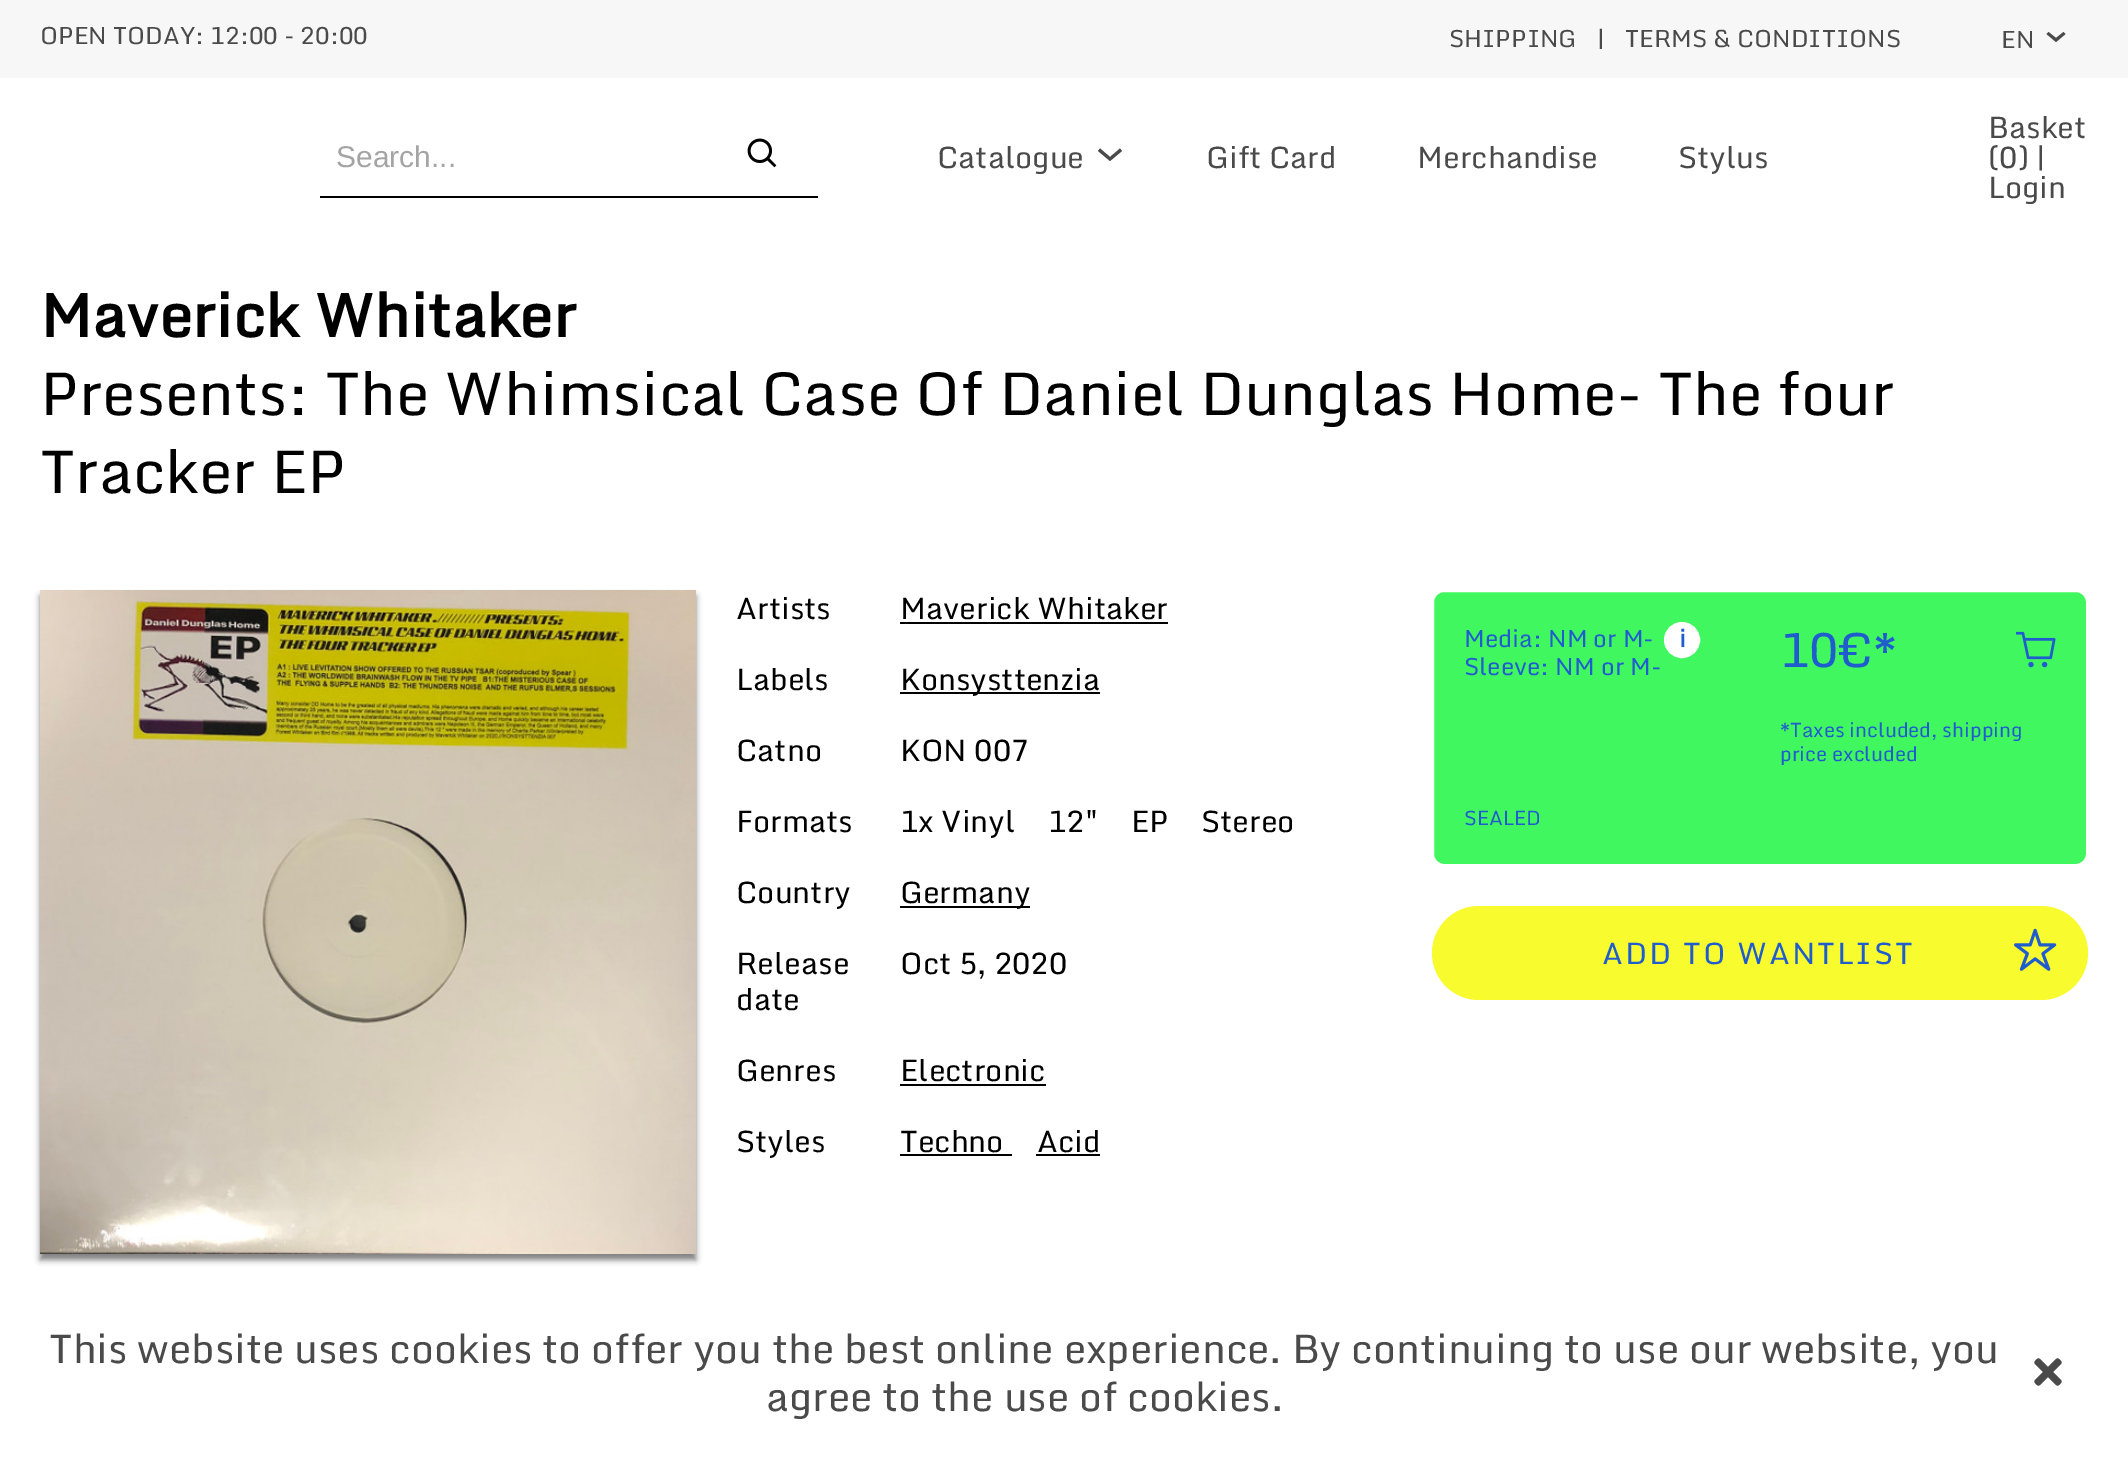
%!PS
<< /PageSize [2128 1466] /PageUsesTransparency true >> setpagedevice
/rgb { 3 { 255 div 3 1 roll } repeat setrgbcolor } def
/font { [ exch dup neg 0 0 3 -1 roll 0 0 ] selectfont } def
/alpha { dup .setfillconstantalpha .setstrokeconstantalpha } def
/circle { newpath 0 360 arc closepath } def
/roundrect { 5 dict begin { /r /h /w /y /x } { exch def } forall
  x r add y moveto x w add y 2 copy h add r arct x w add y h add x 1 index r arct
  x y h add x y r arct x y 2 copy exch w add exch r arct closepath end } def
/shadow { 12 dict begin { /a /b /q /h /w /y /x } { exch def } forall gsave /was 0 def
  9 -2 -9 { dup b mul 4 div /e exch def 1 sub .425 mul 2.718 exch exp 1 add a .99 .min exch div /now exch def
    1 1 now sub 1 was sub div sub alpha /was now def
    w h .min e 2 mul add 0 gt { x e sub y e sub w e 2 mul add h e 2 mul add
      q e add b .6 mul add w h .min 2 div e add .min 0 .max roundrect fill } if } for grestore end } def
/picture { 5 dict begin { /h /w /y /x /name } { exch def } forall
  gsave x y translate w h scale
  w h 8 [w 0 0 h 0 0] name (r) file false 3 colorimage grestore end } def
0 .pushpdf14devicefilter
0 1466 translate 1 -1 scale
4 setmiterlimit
255 255 255 rgb
0 0 2128 1466 rectfill
247 247 247 rgb
0 0 2128 78 rectfill
74 74 74 rgb
2056 42 moveto 2046.5 34 lineto 2048.5 32 lineto 2056 38 lineto 2063.5 32 lineto 2065.5 34 lineto closepath fill
0 0 0 rgb
320 196 498 2 rectfill
(img/1.rgb) 747 138 30 30 picture
74 74 74 rgb
1110 161 moveto 1098 151 lineto 1100 148.5 lineto 1110 157 lineto 1120 148.5 lineto 1122 151 lineto closepath fill
0 0 0 rgb
40 596 656 664 0 3 0.5 shadow
(img/2.rgb) 40 590 656 664 picture
[
  [900 622 268 2 0 0 0]
  [900 692 200 2 0 0 0]
  [900 906 130 2 0 0 0]
  [900 1084 146 2 0 0 0]
  [900 1154 112 2 0 0 0]
  [1036 1154 64 2 0 0 0]
] { aload pop rgb rectfill } forall
65 247 96 rgb
1433 591 654 274 11 roundrect gsave fill grestore
255 255 255 rgb
2 setlinewidth
stroke
1682 640 16 circle gsave fill grestore
4 setlinewidth
stroke
(img/3.rgb) 2016 631 40 37 picture
248 251 45 rgb
1432 906 656 94 47 roundrect fill
(img/4.rgb) 2014 928 43 43 picture
(img/5.rgb) 2034 1358 28 28 picture
/Monda-Regular 24 font
74 74 74 rgb
[
  [(OPEN TODAY: 12:00 - 20:00) 40 44]
  [(SHIPPING) 1449 47]
  [(|) 1597 47]
  [(TERMS & CONDITIONS) 1625 47]
  [(EN) 2001 48]
] { aload pop moveto show } forall
/LiberationSans-Regular 30 font
164 164 164 rgb
336 167 moveto (Search...) show
/Monda-Regular 30 font
74 74 74 rgb
[
  [(Catalogue) 937 168]
  [(Gift Card) 1206 168]
  [(Merchandise) 1417 168]
  [(Stylus) 1678 168]
  [(Basket) 1988 138]
  [(\(0\) |) 1988 168]
  [(Login) 1988 198]
] { aload pop moveto show } forall
/Monda-Bold 60 font
0 0 0 rgb
40 337 moveto (Maverick Whitaker) show
/Monda-Regular 60 font
40 415 moveto (Presents: The Whimsical Case Of Daniel Dunglas Home- The four) show
40 493 moveto (Tracker EP) show
/Monda-Regular 30 font
[
  [(Artists) 736 619]
  [(Maverick Whitaker) 900 619]
  [(Labels) 736 690]
  [(Konsysttenzia) 900 690]
  [(Catno) 736 761]
  [(KON 007) 900 761]
  [(Formats) 736 832]
  [(1x Vinyl) 900 832]
  [(12") 1048 832]
  [(EP) 1131 832]
  [(Stereo) 1201 832]
  [(Country) 736 903]
  [(Germany) 900 903]
  [(Release) 736 974]
  [(date) 736 1010]
  [(Oct 5, 2020) 900 974]
  [(Genres) 736 1081]
  [(Electronic) 900 1081]
  [(Styles) 736 1152]
  [(Techno) 900 1152]
  [(Acid) 1037 1152]
] { aload pop moveto show } forall
/Monda-Regular 24 font
31 93 207 rgb
1464 647 moveto (Media: NM or M-) show
/Monda-Bold 24 font
1679 647 moveto (i) show
/Monda-Regular 24 font
1464 675 moveto (Sleeve: NM or M-) show
/Monda-Regular 48 font
1780 667 moveto (10€*) show
/Monda-Regular 20 font
[
  [(*Taxes included, shipping) 1780 737]
  [(price excluded) 1780 761]
  [(SEALED) 1464 825]
] { aload pop moveto show } forall
/Monda-Regular 30 font
1602 964 moveto 2 0 (ADD TO WANTLIST) ashow
/Monda-Regular 40 font
74 74 74 rgb
49 1363 moveto (This website uses cookies to offer you the best online experience. By continuing to use our website, you) show
766 1411 moveto (agree to the use of cookies.) show
.poppdf14devicefilter showpage
